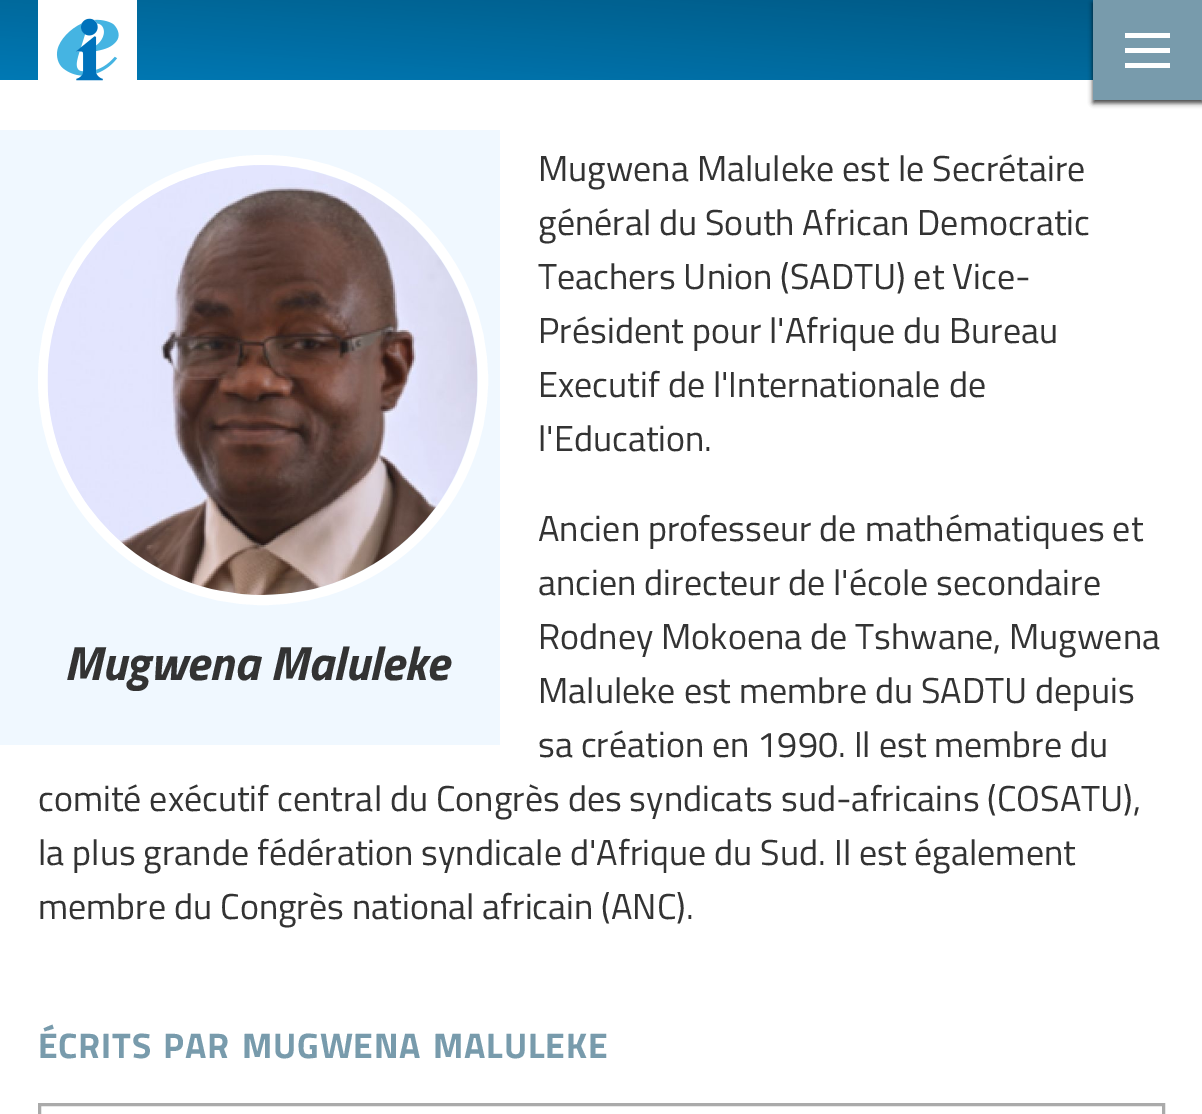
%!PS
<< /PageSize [1202 1114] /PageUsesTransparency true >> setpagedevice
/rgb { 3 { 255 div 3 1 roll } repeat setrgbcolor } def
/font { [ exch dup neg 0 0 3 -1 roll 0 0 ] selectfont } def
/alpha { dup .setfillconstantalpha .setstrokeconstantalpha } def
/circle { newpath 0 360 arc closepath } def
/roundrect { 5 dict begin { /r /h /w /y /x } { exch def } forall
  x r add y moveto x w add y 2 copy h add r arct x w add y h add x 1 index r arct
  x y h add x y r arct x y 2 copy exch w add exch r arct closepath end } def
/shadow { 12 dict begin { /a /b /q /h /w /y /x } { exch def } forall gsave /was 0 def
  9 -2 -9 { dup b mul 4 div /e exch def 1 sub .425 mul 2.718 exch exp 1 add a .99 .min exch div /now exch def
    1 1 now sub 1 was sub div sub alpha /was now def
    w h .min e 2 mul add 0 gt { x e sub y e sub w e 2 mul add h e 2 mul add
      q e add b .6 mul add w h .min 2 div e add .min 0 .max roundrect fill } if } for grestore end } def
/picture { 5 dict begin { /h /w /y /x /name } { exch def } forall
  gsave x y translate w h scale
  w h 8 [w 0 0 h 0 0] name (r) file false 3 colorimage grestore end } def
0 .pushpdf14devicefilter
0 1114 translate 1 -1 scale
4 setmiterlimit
255 255 255 rgb
0 0 1202 1114 rectfill
gsave 0 0 moveto 1093 0 lineto 1093 80 lineto 0 80 lineto closepath clip newpath
<< /ShadingType 2 /ColorSpace /DeviceRGB /Coords [596 120 607 -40] /Extend [true true] /Function << /FunctionType 3 /Domain [0 1] /Functions [<< /FunctionType 2 /Domain [0 1] /C0 [0 0.475 0.706] /C1 [0 0.443 0.659] /N 1 >> << /FunctionType 2 /Domain [0 1] /C0 [0 0.443 0.659] /C1 [0 0.412 0.612] /N 1 >> << /FunctionType 2 /Domain [0 1] /C0 [0 0.412 0.612] /C1 [0 0.38 0.565] /N 1 >> << /FunctionType 2 /Domain [0 1] /C0 [0 0.38 0.565] /C1 [0 0.349 0.522] /N 1 >>] /Bounds [0.25 0.5 0.75] /Encode [0 1 0 1 0 1 0 1] >> >> shfill grestore
(img/1.rgb) 38 0 99 81 picture
0 0 0 rgb
1093 3 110 100 0 2.5 0.75 shadow
[
  [1093 0 109 100 120 155 172]
  [1125 33 45 5 255 255 255]
  [1125 48 45 5 255 255 255]
  [1125 63 45 5 255 255 255]
] { aload pop rgb rectfill } forall
170 170 170 rgb
3 setlinewidth
39.5 1104.5 1124 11 rectstroke
240 248 255 rgb
0 130 500 615 rectfill
255 255 255 rgb
10 setlinewidth
263 380 220 circle stroke
(img/2.rgb) 47 165 431 430 picture
/TitilliumWeb-Regular 36 font
51 51 51 rgb
[
  [(Mugwena Maluleke est le Secrétaire) 538 181]
  [(général du South African Democratic) 538 235]
  [(Teachers Union \(SADTU\) et Vice-) 538 289]
  [(Président pour l'Afrique du Bureau) 538 343]
  [(Executif de l'Internationale de) 538 397]
  [(l'Education.) 538 451]
  [(Ancien professeur de mathématiques et) 538 541]
  [(ancien directeur de l'école secondaire) 538 595]
  [(Rodney Mokoena de Tshwane, Mugwena) 538 649]
  [(Maluleke est membre du SADTU depuis) 538 703]
  [(sa création en 1990. Il est membre du) 538 757]
  [(comité exécutif central du Congrès des syndicats sud-africains \(COSATU\),) 38 811]
  [(la plus grande fédération syndicale d'Afrique du Sud. Il est également) 38 865]
  [(membre du Congrès national africain \(ANC\).) 38 919]
] { aload pop moveto show } forall
/TitilliumWeb-Bold 35.5 font
120 155 172 rgb
38 1058 moveto 0.75 0 (ÉCRITS) ashow
163 1058 moveto 0.75 0 (PAR) ashow
242 1058 moveto 0.75 0 (MUGWENA) ashow
433 1058 moveto 0.75 0 (MALULEKE) ashow
/TitilliumWeb-BoldItalic 48 font
51 51 51 rgb
64 680 moveto (Mugwena Maluleke) show
.poppdf14devicefilter showpage
